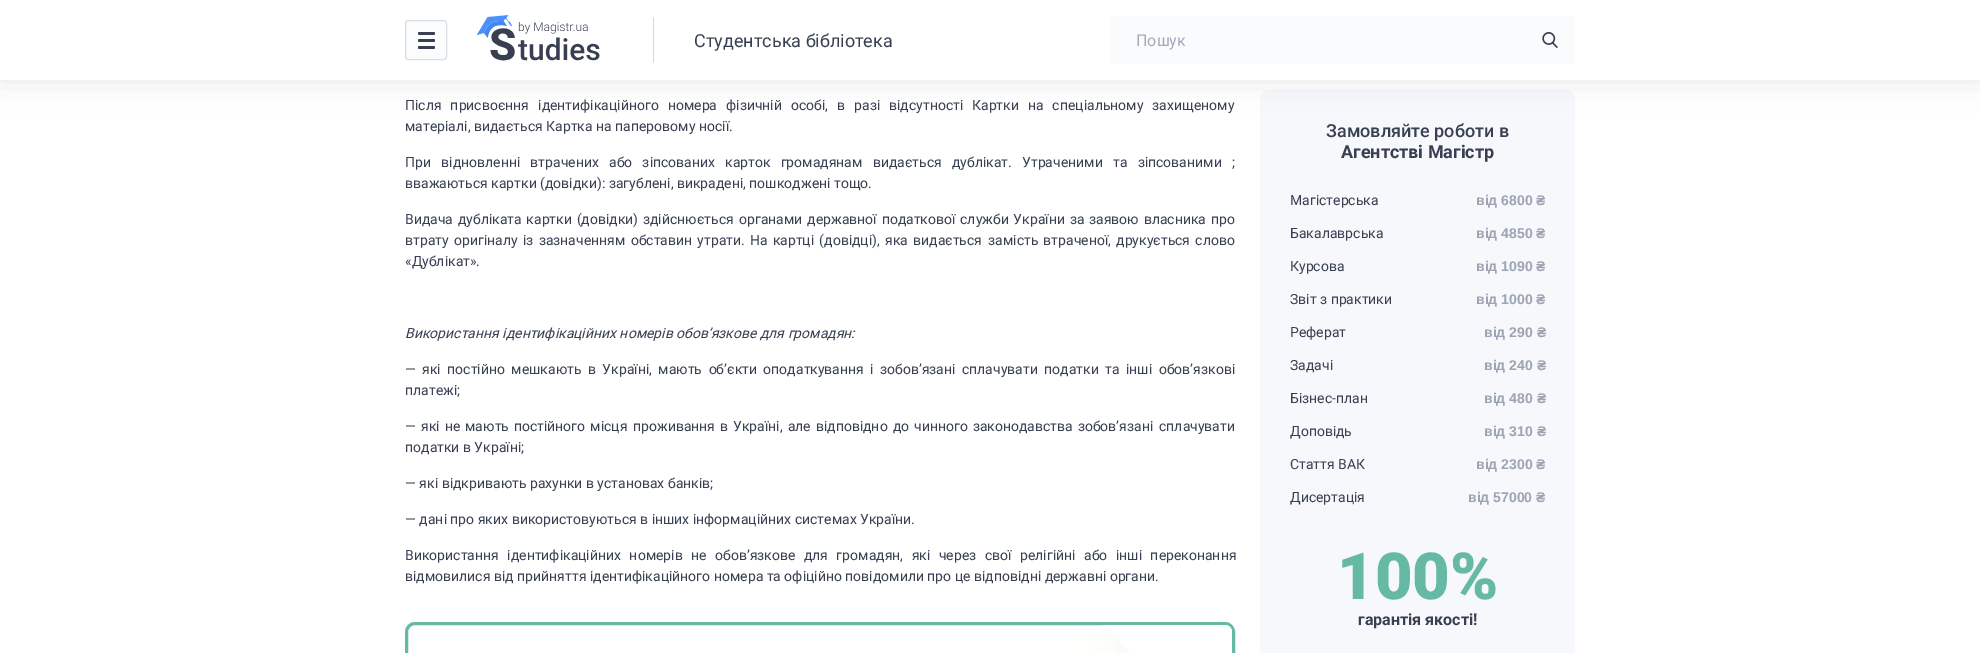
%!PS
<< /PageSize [1980 653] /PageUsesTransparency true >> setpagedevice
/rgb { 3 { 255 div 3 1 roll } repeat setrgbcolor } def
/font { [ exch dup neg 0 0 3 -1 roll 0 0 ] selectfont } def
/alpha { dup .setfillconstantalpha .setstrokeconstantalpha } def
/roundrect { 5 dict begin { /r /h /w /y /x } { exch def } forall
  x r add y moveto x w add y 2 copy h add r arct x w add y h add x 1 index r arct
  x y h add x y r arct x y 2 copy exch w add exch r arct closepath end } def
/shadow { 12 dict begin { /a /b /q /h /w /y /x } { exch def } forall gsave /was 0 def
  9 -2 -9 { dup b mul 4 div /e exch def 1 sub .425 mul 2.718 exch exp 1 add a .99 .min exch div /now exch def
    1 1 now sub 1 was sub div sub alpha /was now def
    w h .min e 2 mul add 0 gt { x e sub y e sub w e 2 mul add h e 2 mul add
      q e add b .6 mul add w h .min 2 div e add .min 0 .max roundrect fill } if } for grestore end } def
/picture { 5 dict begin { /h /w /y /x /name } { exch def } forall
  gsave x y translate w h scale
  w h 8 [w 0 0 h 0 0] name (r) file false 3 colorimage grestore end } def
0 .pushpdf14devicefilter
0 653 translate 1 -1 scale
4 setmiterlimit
255 255 255 rgb
0 0 1980 653 rectfill
101 185 165 rgb
3 setlinewidth
406.5 623.5 827 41 8.5 roundrect stroke
gsave
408 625 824 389 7 roundrect clip newpath
204 192 190 rgb
1138 534 200 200 0 29.5 0.3 shadow
grestore
246 248 252 rgb
1260 90 315 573 10 roundrect fill
0 0 0 rgb
0 0 1980 80 0 15 0.1 shadow
255 255 255 rgb
0 0 1980 80 rectfill
250 252 254 rgb
405.5 20.5 41 39 2.5 roundrect gsave fill grestore
218 222 225 rgb
1 setlinewidth
stroke
55 63 80 rgb
418 32 17 3 1.5 roundrect fill
418 39 17 3 1.5 roundrect fill
418 46 17 3 1.5 roundrect fill
(img/1.rgb) 477 15 123 46 picture
221 213 207 rgb
653 17 1 46 rectfill
249 251 253 rgb
1110 16 465 48 3 roundrect fill
(img/2.rgb) 1542 32 16 16 picture
255 255 255 rgb
1232 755 moveto 1103 625 lineto 1225 625 lineto 1229 625 1232 628 1232 632 curveto closepath fill
/Roboto-Regular 18 font
55 63 81 rgb
694 47 moveto (Студентська бібліотека) show
/Roboto-Regular 16 font
163 170 185 rgb
1136 46 moveto (Пошук) show
/Roboto-Regular 14 font
55 63 81 rgb
405 110 moveto 5.5 0 32 (Після присвоєння ідентифікаційного номера) widthshow
726 110 moveto 5.5 0 32 (фізичній особі, в разі відсутності Картки на спеціальному захищеному) widthshow
405 131 moveto (матеріалі, видається Картка на паперовому носії.) show
405 167 moveto 6.75 0 32 (При відновленні втрачених або зіпсованих) widthshow
725 167 moveto 6.75 0 32 (карток громадянам видається дублікат. Утраченими та зіпсованими ;) widthshow
405 188 moveto (вважаються картки \(довідки\): загублені, викрадені, пошкоджені тощо.) show
405 224 moveto 1.25 0 32 (Видача дубліката картки \(довідки\) здійснюється) widthshow
739 224 moveto 1.25 0 32 (органами державної податкової служби України за заявою власника про) widthshow
405 245 moveto (втрату) show
454 245 moveto 1.75 0 32 (оригіналу із зазначенням обставин утрати. На картці \(довідці\), яка видається) widthshow
988 245 moveto 1.75 0 32 (замість втраченої, друкується слово) widthshow
405 266 moveto («Дублікат».) show
/Roboto-Italic 14 font
405 338 moveto (Використання ідентифікаційних номерів обов’язкове для громадян:) show
/Roboto-Regular 14 font
405 374 moveto (—) show
422 374 moveto 3 0 32 (які постійно мешкають в Україні, мають об’єкти оподаткування і) widthshow
880 374 moveto 3 0 32 (зобов’язані сплачувати податки та інші обов’язкові) widthshow
405 395 moveto (платежі;) show
405 431 moveto (—) show
421 431 moveto 1.5 0 32 (які не мають постійного місця) widthshow
633 431 moveto 1.5 0 32 (проживання в Україні, але відповідно до чинного законодавства зобов’язані) widthshow
[
  [(сплачувати) 1159 431]
  [(податки в Україні;) 405 452]
  [(— які відкривають рахунки в установах банків;) 405 488]
  [(— дані про яких використовуються в інших інформаційних системах України.) 405 524]
] { aload pop moveto show } forall
405 560 moveto 5 0 32 (Використання ідентифікаційних номерів не) widthshow
715 560 moveto 5 0 32 (обов’язкове для громадян, які через свої релігійні або інші переконання) widthshow
405 581 moveto (відмовилися від прийняття ідентифікаційного номера та офіційно повідомили про це відповідні державні органи.) show
/Roboto-Medium 18 font
1326 137 moveto (Замовляйте роботи в) show
/Roboto-Bold 18 font
1341 158 moveto (Агентстві Магістр) show
/Roboto-Regular 14 font
1290 205 moveto (Магістерська) show
/LiberationSans-Bold 14 font
157 164 180 rgb
1476 205 moveto (від 6800 ₴) show
/Roboto-Regular 14 font
55 63 81 rgb
1290 238 moveto (Бакалаврська) show
/LiberationSans-Bold 14 font
157 164 180 rgb
1476 238 moveto (від 4850 ₴) show
/Roboto-Regular 14 font
55 63 81 rgb
1290 271 moveto (Курсова) show
/LiberationSans-Bold 14 font
157 164 180 rgb
1476 271 moveto (від 1090 ₴) show
/Roboto-Regular 14 font
55 63 81 rgb
1290 304 moveto (Звіт з практики) show
/LiberationSans-Bold 14 font
157 164 180 rgb
1476 304 moveto (від 1000 ₴) show
/Roboto-Regular 14 font
55 63 81 rgb
1290 337 moveto (Реферат) show
/LiberationSans-Bold 14 font
157 164 180 rgb
1484 337 moveto (від 290 ₴) show
/Roboto-Regular 14 font
55 63 81 rgb
1290 370 moveto (Задачі) show
/LiberationSans-Bold 14 font
157 164 180 rgb
1484 370 moveto (від 240 ₴) show
/Roboto-Regular 14 font
55 63 81 rgb
1290 403 moveto (Бізнес-план) show
/LiberationSans-Bold 14 font
157 164 180 rgb
1484 403 moveto (від 480 ₴) show
/Roboto-Regular 14 font
55 63 81 rgb
1290 436 moveto (Доповідь) show
/LiberationSans-Bold 14 font
157 164 180 rgb
1484 436 moveto (від 310 ₴) show
/Roboto-Regular 14 font
55 63 81 rgb
1290 469 moveto (Стаття ВАК) show
/LiberationSans-Bold 14 font
157 164 180 rgb
1476 469 moveto (від 2300 ₴) show
/Roboto-Regular 14 font
55 63 81 rgb
1290 502 moveto (Дисертація) show
/LiberationSans-Bold 14 font
157 164 180 rgb
1468 502 moveto (від 57000 ₴) show
/Roboto-Black 65 font
101 185 165 rgb
1337 599 moveto (100%) show
/Roboto-Bold 16 font
55 63 81 rgb
1358 625 moveto (гарантія якості!) show
.poppdf14devicefilter showpage
